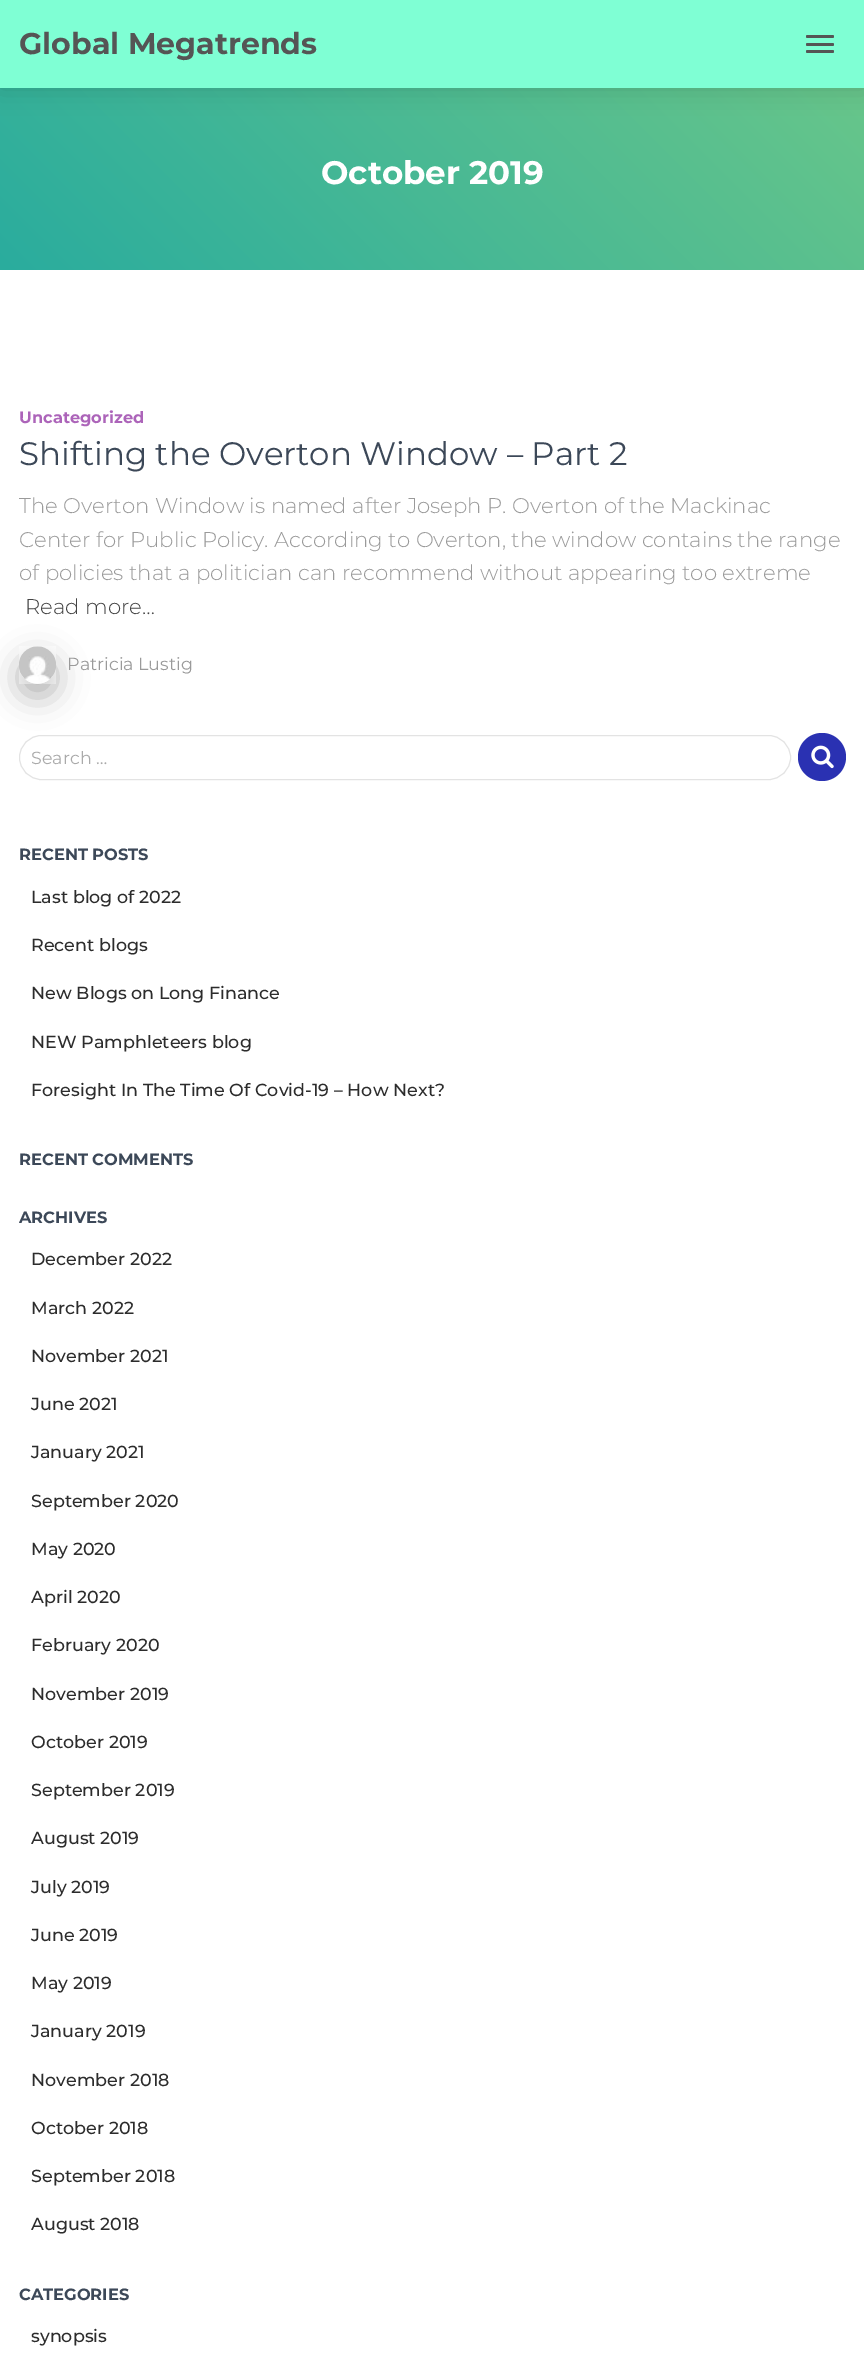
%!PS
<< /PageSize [864 2362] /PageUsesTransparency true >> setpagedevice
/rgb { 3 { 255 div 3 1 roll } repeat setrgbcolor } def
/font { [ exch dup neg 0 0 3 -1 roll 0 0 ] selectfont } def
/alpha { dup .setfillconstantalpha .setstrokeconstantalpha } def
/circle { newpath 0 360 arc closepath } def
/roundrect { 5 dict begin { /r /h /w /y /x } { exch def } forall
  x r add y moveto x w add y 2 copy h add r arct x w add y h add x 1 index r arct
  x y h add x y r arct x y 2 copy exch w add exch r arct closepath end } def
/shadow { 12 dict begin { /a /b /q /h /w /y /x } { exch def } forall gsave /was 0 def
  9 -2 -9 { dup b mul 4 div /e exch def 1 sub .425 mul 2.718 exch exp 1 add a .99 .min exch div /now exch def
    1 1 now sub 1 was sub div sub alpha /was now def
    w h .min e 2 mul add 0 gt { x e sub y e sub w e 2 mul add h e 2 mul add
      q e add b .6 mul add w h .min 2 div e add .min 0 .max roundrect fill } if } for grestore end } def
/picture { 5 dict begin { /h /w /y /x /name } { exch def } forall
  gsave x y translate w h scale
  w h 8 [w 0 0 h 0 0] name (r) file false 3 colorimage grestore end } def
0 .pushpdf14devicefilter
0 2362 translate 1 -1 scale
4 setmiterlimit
255 255 255 rgb
0 0 864 2362 rectfill
gsave 0 88 moveto 864 88 lineto 864 270 lineto 0 270 lineto closepath clip newpath
<< /ShadingType 2 /ColorSpace /DeviceRGB /Coords [149 419 716 -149] /Extend [true true] /Function << /FunctionType 2 /Domain [0 1] /C0 [0.165 0.675 0.62] /C1 [0.424 0.784 0.537] /N 1 >> >> shfill grestore
0 0 0 rgb
0 0 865 88 0 12.5 0.15 shadow
127 255 212 rgb
0 0 864 88 rectfill
85 85 85 rgb
806 35 28 3 1.5 roundrect fill
806 43 28 3 1.5 roundrect fill
806 50 28 3 1.5 roundrect fill
0 0 0 rgb
19 659 37 37 18.5 15.5 0.3 shadow
(img/1.rgb) 19 646 37 38 picture
227 227 227 rgb
19.5 735.5 771 44 22 roundrect stroke
42 49 178 rgb
822 757 24 circle fill
(img/2.rgb) 811 745 23 24 picture
/Montserrat-Bold 30 font
85 85 85 rgb
19 54 moveto (Global Megatrends) show
/Montserrat-Bold 32.5 font
255 255 255 rgb
321 184 moveto (October 2019) show
/Montserrat-Bold 16.25 font
172 100 185 rgb
19 423 moveto (Uncategorized) show
/Montserrat-Regular 32.5 font
60 72 88 rgb
19 465 moveto (Shifting the Overton Window – Part 2) show
/Montserrat-Light 21.25 font
154 154 154 rgb
[
  [(The Overton Window is named after Joseph P. Overton of the Mackinac) 19 513]
  [(Center for Public Policy. According to Overton, the window contains the range) 19 547]
  [(of policies that a politician can recommend without appearing too extreme) 19 580]
] { aload pop moveto show } forall
68 68 68 rgb
25 614 moveto (Read more…) show
/Montserrat-Regular 17.5 font
154 154 154 rgb
67 670 moveto (Patricia Lustig) show
170 170 170 rgb
31 764 moveto (Search …) show
/Montserrat-Bold 16.25 font
60 72 88 rgb
19 860 moveto (RECENT POSTS) show
/Montserrat-Medium 17.5 font
44 44 44 rgb
[
  [(Last blog of 2022) 31 903]
  [(Recent blogs) 31 951]
  [(New Blogs on Long Finance) 31 999]
  [(NEW Pamphleteers blog) 31 1048]
  [(Foresight In The Time Of Covid-19 – How Next?) 31 1096]
] { aload pop moveto show } forall
/Montserrat-Bold 16.25 font
60 72 88 rgb
19 1165 moveto (RECENT COMMENTS) show
19 1223 moveto (ARCHIVES) show
/Montserrat-Medium 17.5 font
44 44 44 rgb
[
  [(December 2022) 31 1265]
  [(March 2022) 31 1314]
  [(November 2021) 31 1362]
  [(June 2021) 31 1410]
  [(January 2021) 31 1458]
  [(September 2020) 31 1507]
  [(May 2020) 31 1555]
  [(April 2020) 31 1603]
  [(February 2020) 31 1651]
  [(November 2019) 31 1700]
  [(October 2019) 31 1748]
  [(September 2019) 31 1796]
  [(August 2019) 31 1844]
  [(July 2019) 31 1893]
  [(June 2019) 31 1941]
  [(May 2019) 31 1989]
  [(January 2019) 31 2037]
  [(November 2018) 31 2086]
  [(October 2018) 31 2134]
  [(September 2018) 31 2182]
  [(August 2018) 31 2230]
] { aload pop moveto show } forall
/Montserrat-Bold 16.25 font
60 72 88 rgb
19 2300 moveto (CATEGORIES) show
/Montserrat-Medium 17.5 font
44 44 44 rgb
31 2342 moveto (synopsis) show
.poppdf14devicefilter showpage
